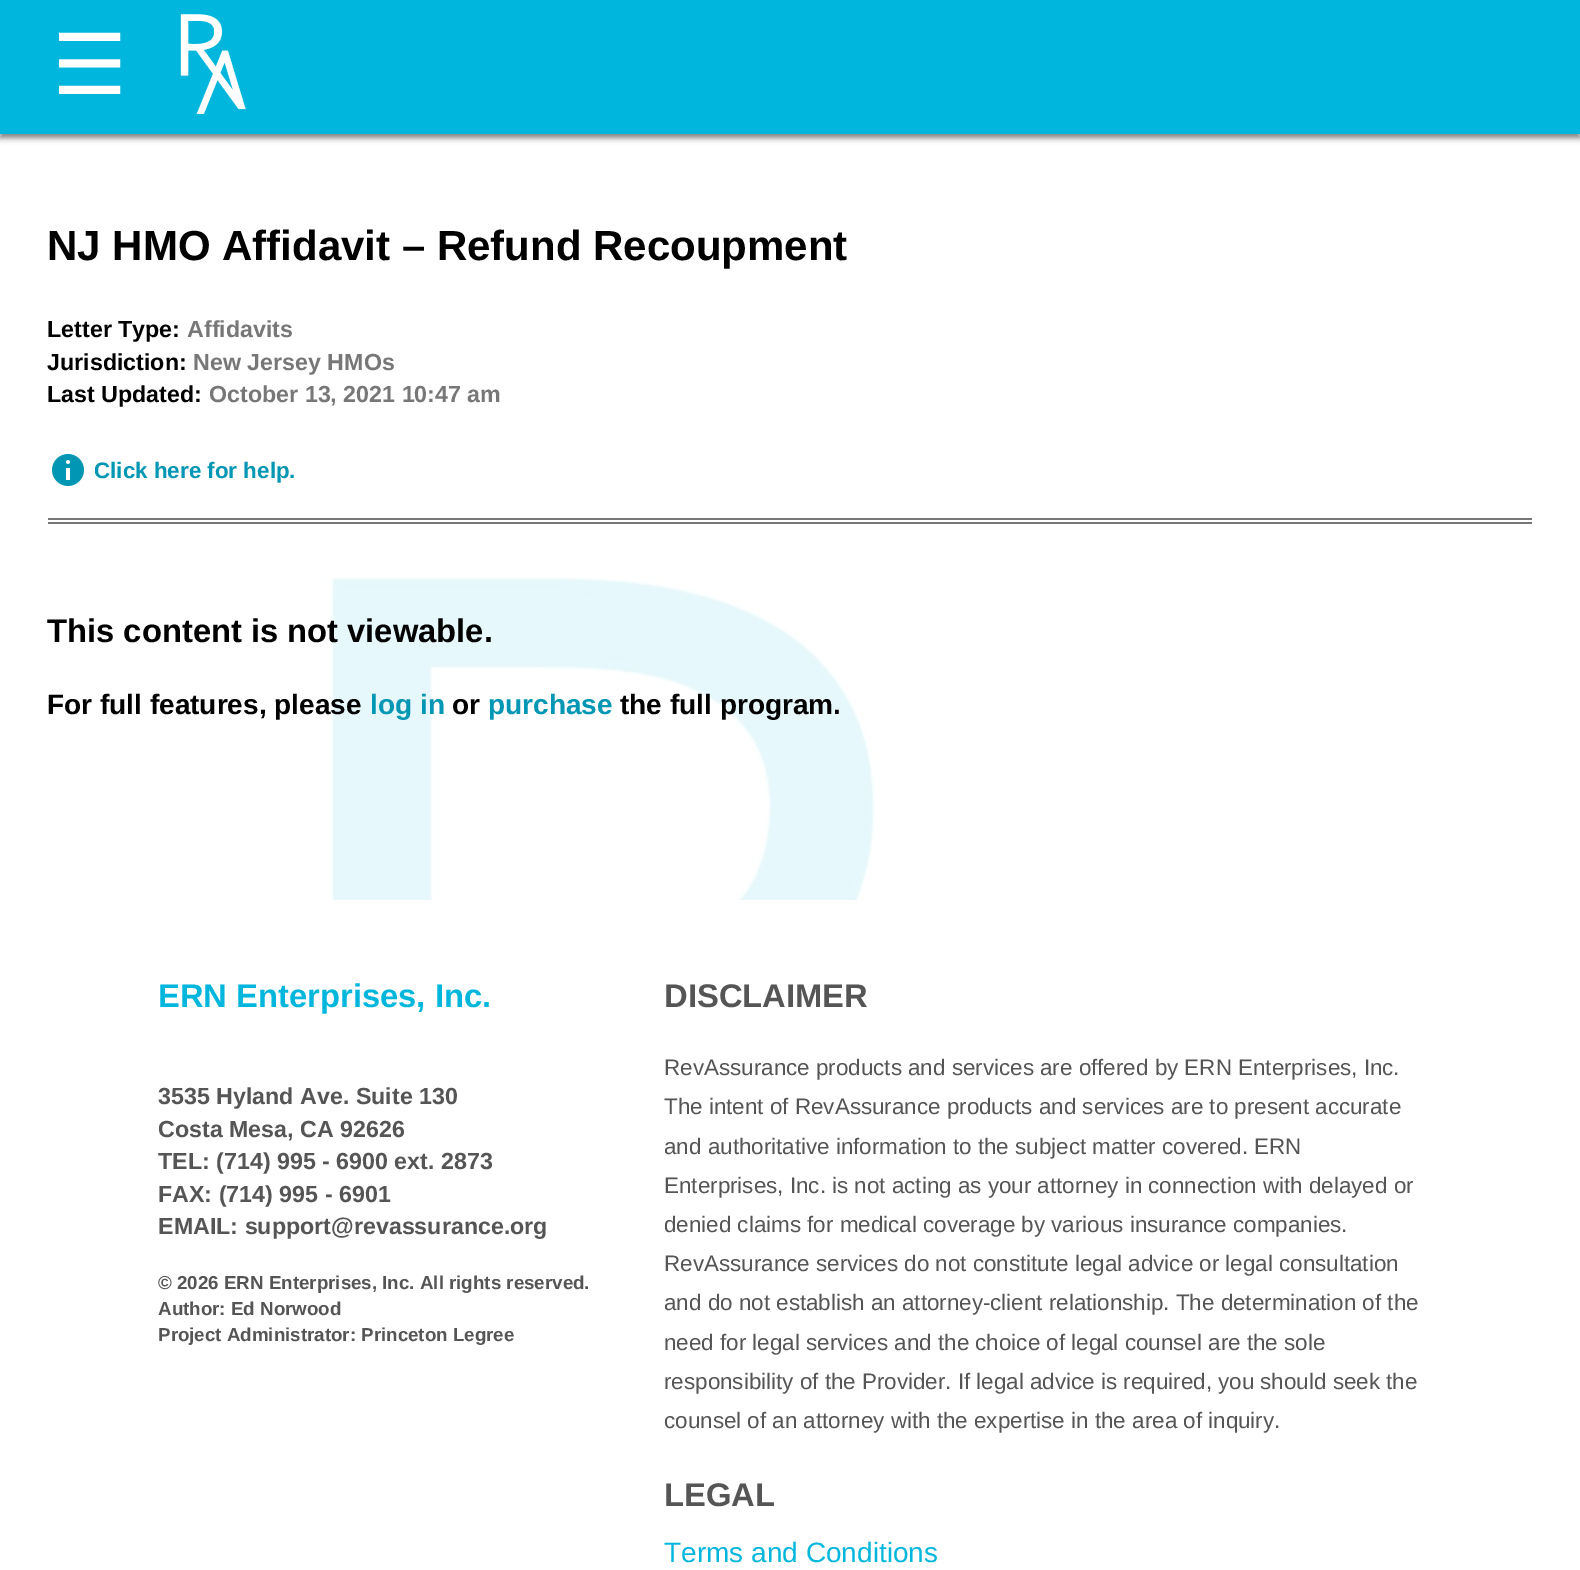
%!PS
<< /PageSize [1580 1570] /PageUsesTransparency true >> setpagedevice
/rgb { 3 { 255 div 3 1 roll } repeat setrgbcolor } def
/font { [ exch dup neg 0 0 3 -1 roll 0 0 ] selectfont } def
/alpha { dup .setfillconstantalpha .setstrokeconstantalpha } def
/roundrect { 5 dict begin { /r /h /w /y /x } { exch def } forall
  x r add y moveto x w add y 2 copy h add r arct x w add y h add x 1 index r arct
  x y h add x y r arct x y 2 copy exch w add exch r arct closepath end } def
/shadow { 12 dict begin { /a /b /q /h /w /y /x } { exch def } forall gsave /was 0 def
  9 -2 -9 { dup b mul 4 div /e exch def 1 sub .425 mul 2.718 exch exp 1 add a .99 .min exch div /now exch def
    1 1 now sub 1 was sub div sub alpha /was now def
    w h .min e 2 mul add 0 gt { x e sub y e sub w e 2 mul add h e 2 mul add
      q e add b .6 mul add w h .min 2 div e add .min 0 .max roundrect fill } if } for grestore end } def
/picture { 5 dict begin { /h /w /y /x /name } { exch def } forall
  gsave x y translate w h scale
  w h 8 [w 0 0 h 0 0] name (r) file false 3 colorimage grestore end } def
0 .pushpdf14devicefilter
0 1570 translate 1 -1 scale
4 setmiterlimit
255 255 255 rgb
0 0 1580 1570 rectfill
(img/1.rgb) 320 576 802 324 picture
0 0 0 rgb
0 4 1580 134 0 3 0.5 shadow
0 182 221 rgb
0 0 1580 134 rectfill
(img/2.rgb) 180 14 66 100 picture
(img/3.rgb) 52 454 32 32 picture
119 119 119 rgb
48 518 1484 2 rectfill
48 522 1484 2 rectfill
/DejaVuSans-Regular 84 font
255 255 255 rgb
52 94 moveto (☰) show
/LiberationSans-Bold 42 font
0 0 0 rgb
47 260 moveto (NJ HMO Affidavit – Refund Recoupment) show
/LiberationSans-Bold 23.25 font
47 337 moveto (Letter Type:) show
119 119 119 rgb
187 337 moveto (Affidavits) show
0 0 0 rgb
47 370 moveto (Jurisdiction:) show
119 119 119 rgb
193 370 moveto (New Jersey HMOs) show
0 0 0 rgb
47 402 moveto (Last Updated:) show
119 119 119 rgb
209 402 moveto (October 13, 2021 10:47 am) show
/LiberationSans-Bold 22.4 font
0 150 180 rgb
94 478 moveto (Click here for help.) show
/LiberationSans-Bold 32.75 font
0 0 0 rgb
47 642 moveto (This content is not viewable.) show
/LiberationSans-Bold 28 font
47 714 moveto (For full features, please) show
0 150 180 rgb
370 714 moveto (log in) show
0 0 0 rgb
452 714 moveto (or) show
0 150 180 rgb
488 714 moveto (purchase) show
0 0 0 rgb
620 714 moveto (the full program.) show
/LiberationSans-Bold 32.75 font
0 182 221 rgb
158 1007 moveto (ERN Enterprises, Inc.) show
/LiberationSans-Bold 23.25 font
85 85 85 rgb
[
  [(3535 Hyland Ave. Suite 130) 158 1104]
  [(Costa Mesa, CA 92626) 158 1137]
  [(TEL: \(714\) 995 - 6900 ext. 2873) 158 1169]
  [(FAX: \(714\) 995 - 6901) 158 1202]
  [(EMAIL: support@revassurance.org) 158 1234]
] { aload pop moveto show } forall
/LiberationSans-Bold 18.75 font
[
  [(© 2026 ERN Enterprises, Inc. All rights reserved.) 158 1289]
  [(Author: Ed Norwood) 158 1315]
  [(Project Administrator: Princeton Legree) 158 1341]
] { aload pop moveto show } forall
/LiberationSans-Bold 32.75 font
664 1007 moveto (DISCLAIMER) show
/LiberationSans-Regular 22.4 font
[
  [(RevAssurance products and services are offered by ERN Enterprises, Inc.) 664 1075]
  [(The intent of RevAssurance products and services are to present accurate) 664 1114]
  [(and authoritative information to the subject matter covered. ERN) 664 1154]
  [(Enterprises, Inc. is not acting as your attorney in connection with delayed or) 664 1193]
  [(denied claims for medical coverage by various insurance companies.) 664 1232]
  [(RevAssurance services do not constitute legal advice or legal consultation) 664 1271]
  [(and do not establish an attorney-client relationship. The determination of the) 664 1310]
  [(need for legal services and the choice of legal counsel are the sole) 664 1350]
  [(responsibility of the Provider. If legal advice is required, you should seek the) 664 1389]
  [(counsel of an attorney with the expertise in the area of inquiry.) 664 1428]
] { aload pop moveto show } forall
/LiberationSans-Bold 32.75 font
664 1506 moveto (LEGAL) show
/LiberationSans-Regular 28 font
0 182 221 rgb
664 1562 moveto (Terms and Conditions) show
.poppdf14devicefilter showpage
